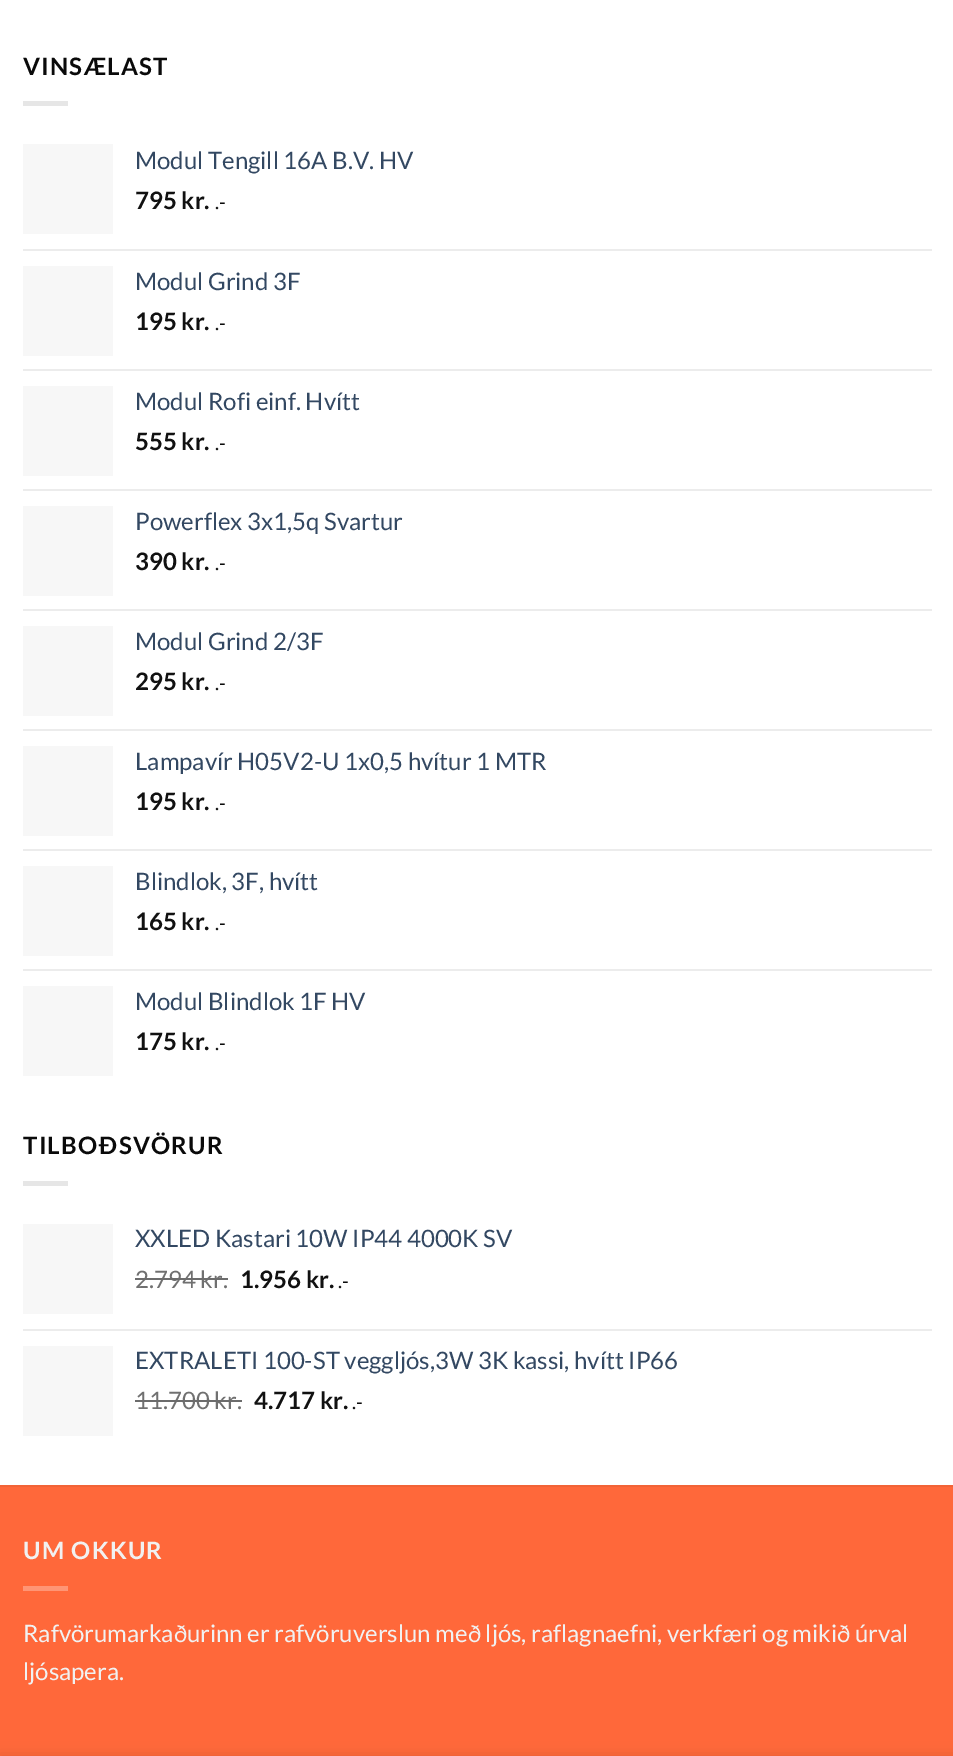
%!PS
<< /PageSize [953 1756] /PageUsesTransparency true >> setpagedevice
/rgb { 3 { 255 div 3 1 roll } repeat setrgbcolor } def
/font { [ exch dup neg 0 0 3 -1 roll 0 0 ] selectfont } def
/alpha { dup .setfillconstantalpha .setstrokeconstantalpha } def
/roundrect { 5 dict begin { /r /h /w /y /x } { exch def } forall
  x r add y moveto x w add y 2 copy h add r arct x w add y h add x 1 index r arct
  x y h add x y r arct x y 2 copy exch w add exch r arct closepath end } def
/shadow { 12 dict begin { /a /b /q /h /w /y /x } { exch def } forall gsave /was 0 def
  9 -2 -9 { dup b mul 4 div /e exch def 1 sub .425 mul 2.718 exch exp 1 add a .99 .min exch div /now exch def
    1 1 now sub 1 was sub div sub alpha /was now def
    w h .min e 2 mul add 0 gt { x e sub y e sub w e 2 mul add h e 2 mul add
      q e add b .6 mul add w h .min 2 div e add .min 0 .max roundrect fill } if } for grestore end } def
0 .pushpdf14devicefilter
0 1756 translate 1 -1 scale
4 setmiterlimit
255 255 255 rgb
0 0 953 1756 rectfill
[
  [23 101 45 5 230 230 230]
  [23 144 90 90 247 247 247]
  [23 249 909 2 236 236 236]
  [23 266 90 90 247 247 247]
  [23 369 909 2 236 236 236]
  [23 386 90 90 247 247 247]
  [23 489 909 2 236 236 236]
  [23 506 90 90 247 247 247]
  [23 609 909 2 236 236 236]
  [23 626 90 90 247 247 247]
  [23 729 909 2 236 236 236]
  [23 746 90 90 247 247 247]
  [23 849 909 2 236 236 236]
  [23 866 90 90 247 247 247]
  [23 969 909 2 236 236 236]
  [23 986 90 90 247 247 247]
  [23 1181 45 5 230 230 230]
  [23 1224 90 90 247 247 247]
  [23 1329 909 2 236 236 236]
  [23 1346 90 90 247 247 247]
  [0 1487 953 269 255 104 58]
  [0 1485 953 2 242 99 55]
  [23 1586 45 5 255 149 117]
] { aload pop rgb rectfill } forall
0 0 0 rgb
0 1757 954 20 0 7 0.14 shadow
/Lato-Bold 24 font
10 10 10 rgb
23 75 moveto 1.25 0 (VINSÆLAST) ashow
/Lato-Regular 24 font
51 72 98 rgb
135 169 moveto (Modul Tengill 16A B.V. HV) show
/Lato-Bold 24 font
17 17 17 rgb
135 209 moveto (795 kr.) show
/Lato-Regular 19 font
10 10 10 rgb
215 209 moveto (.-) show
/Lato-Regular 24 font
51 72 98 rgb
135 290 moveto (Modul Grind 3F) show
/Lato-Bold 24 font
17 17 17 rgb
135 330 moveto (195 kr.) show
/Lato-Regular 19 font
10 10 10 rgb
215 330 moveto (.-) show
/Lato-Regular 24 font
51 72 98 rgb
135 410 moveto (Modul Rofi einf. Hvítt) show
/Lato-Bold 24 font
17 17 17 rgb
135 450 moveto (555 kr.) show
/Lato-Regular 19 font
10 10 10 rgb
215 450 moveto (.-) show
/Lato-Regular 24 font
51 72 98 rgb
135 530 moveto (Powerflex 3x1,5q Svartur) show
/Lato-Bold 24 font
17 17 17 rgb
135 570 moveto (390 kr.) show
/Lato-Regular 19 font
10 10 10 rgb
215 570 moveto (.-) show
/Lato-Regular 24 font
51 72 98 rgb
135 650 moveto (Modul Grind 2/3F) show
/Lato-Bold 24 font
17 17 17 rgb
135 690 moveto (295 kr.) show
/Lato-Regular 19 font
10 10 10 rgb
215 690 moveto (.-) show
/Lato-Regular 24 font
51 72 98 rgb
135 770 moveto (Lampavír H05V2-U 1x0,5 hvítur 1 MTR) show
/Lato-Bold 24 font
17 17 17 rgb
135 810 moveto (195 kr.) show
/Lato-Regular 19 font
10 10 10 rgb
215 810 moveto (.-) show
/Lato-Regular 24 font
51 72 98 rgb
135 890 moveto (Blindlok, 3F, hvítt) show
/Lato-Bold 24 font
17 17 17 rgb
135 930 moveto (165 kr.) show
/Lato-Regular 19 font
10 10 10 rgb
215 930 moveto (.-) show
/Lato-Regular 24 font
51 72 98 rgb
135 1010 moveto (Modul Blindlok 1F HV) show
/Lato-Bold 24 font
17 17 17 rgb
135 1050 moveto (175 kr.) show
/Lato-Regular 19 font
10 10 10 rgb
215 1050 moveto (.-) show
/Lato-Bold 24 font
23 1154 moveto 1.25 0 (TILBOÐSVÖRUR) ashow
/Lato-Regular 24 font
51 72 98 rgb
135 1247 moveto (XXLED Kastari 10W IP44 4000K SV) show
112 112 112 rgb
135 1288 moveto (2.794 kr.) show
108 108 108 rgb
135 1278 93 2 rectfill
/Lato-Bold 24 font
17 17 17 rgb
240 1288 moveto (1.956 kr.) show
/Lato-Regular 19 font
10 10 10 rgb
338 1288 moveto (.-) show
/Lato-Regular 24 font
51 72 98 rgb
135 1369 moveto (EXTRALETI 100-ST veggljós,3W 3K kassi, hvítt IP66) show
112 112 112 rgb
135 1409 moveto (11.700 kr.) show
108 108 108 rgb
135 1400 107 2 rectfill
/Lato-Bold 24 font
17 17 17 rgb
254 1409 moveto (4.717 kr.) show
/Lato-Regular 19 font
10 10 10 rgb
352 1409 moveto (.-) show
/Lato-Bold 24 font
241 241 241 rgb
23 1559 moveto 1.25 0 (UM OKKUR) ashow
/Lato-Regular 24 font
23 1642 moveto (Rafvörumarkaðurinn er rafvöruverslun með ljós, raflagnaefni, verkfæri og mikið úrval) show
23 1680 moveto (ljósapera.) show
.poppdf14devicefilter showpage
